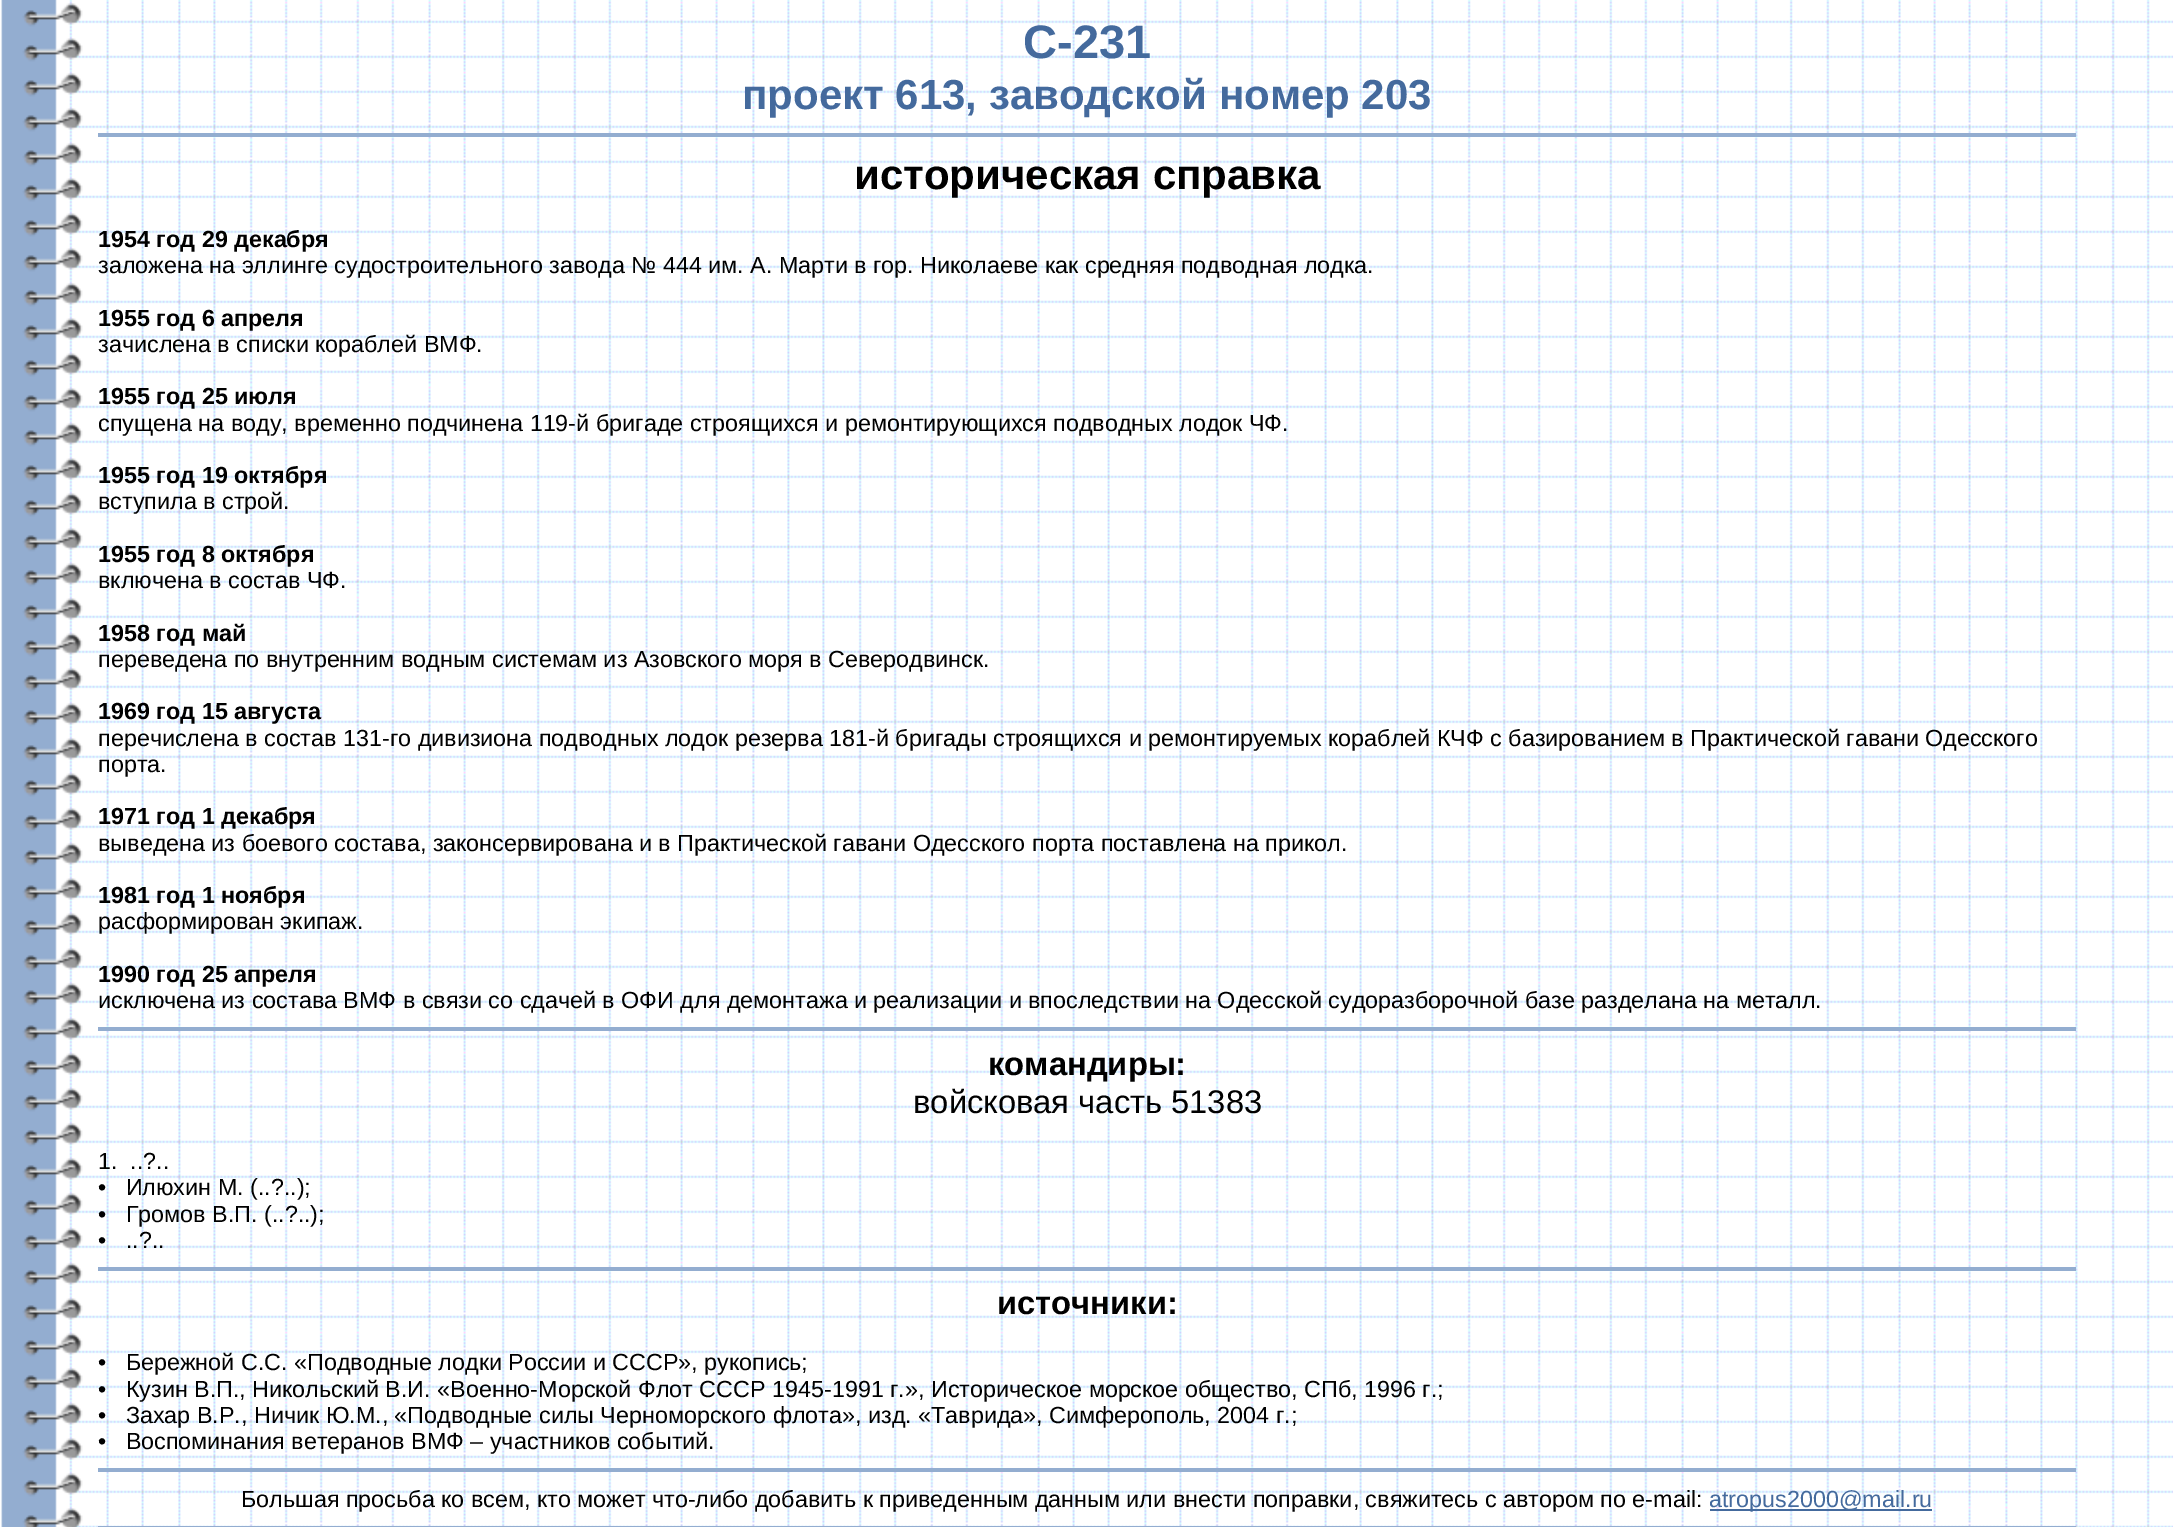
%!PS
<< /PageSize [2173 1527] >> setpagedevice
/rgb { 3 { 255 div 3 1 roll } repeat setrgbcolor } def
/font { [ exch dup neg 0 0 3 -1 roll 0 0 ] selectfont } def
/picture { 5 dict begin { /h /w /y /x /name } { exch def } forall
  gsave x y translate w h scale
  w h 8 [w 0 0 h 0 0] name (r) file false 3 colorimage grestore end } def
0 1527 translate 1 -1 scale
4 setmiterlimit
255 255 255 rgb
0 0 2173 1527 rectfill
(img/1.rgb) 1 0 2172 1527 picture
[
  [98 133 1978 4 147 173 208]
  [98 1027 1978 4 147 173 208]
  [98 1267 1978 4 147 173 208]
  [98 1468 1978 4 147 173 208]
  [1710 1509 222 2 68 106 157]
  [98 1526 1978 1 147 173 208]
] { aload pop rgb rectfill } forall
/LiberationSans-Bold 47 font
68 106 157 rgb
1023 58 moveto (С-231) show
/LiberationSans-Bold 42 font
742 109 moveto (проект 613, заводской номер 203) show
0 0 0 rgb
854 189 moveto (историческая справка) show
/LiberationSans-Bold 23.33 font
98 247 moveto (1954 год 29 декабря) show
/LiberationSans-Regular 23.33 font
98 273 moveto (заложена на эллинге судостроительного завода № 444 им. А. Марти в гор. Николаеве) show
1045 273 moveto (как средняя подводная лодка.) show
/LiberationSans-Bold 23.33 font
98 326 moveto (1955 год 6 апреля) show
/LiberationSans-Regular 23.33 font
98 352 moveto (зачислена в списки кораблей ВМФ.) show
/LiberationSans-Bold 23.33 font
98 404 moveto (1955 год 25 июля) show
/LiberationSans-Regular 23.33 font
98 431 moveto (спущена на воду, временно подчинена 119-й бригаде строящихся и ремонтирующихся) show
1053 431 moveto (подводных лодок ЧФ.) show
/LiberationSans-Bold 23.33 font
98 483 moveto (1955 год 19 октября) show
/LiberationSans-Regular 23.33 font
98 509 moveto (вступила в строй.) show
/LiberationSans-Bold 23.33 font
98 562 moveto (1955 год 8 октября) show
/LiberationSans-Regular 23.33 font
98 588 moveto (включена в состав ЧФ.) show
/LiberationSans-Bold 23.33 font
98 641 moveto (1958 год май) show
/LiberationSans-Regular 23.33 font
98 667 moveto (переведена по внутренним водным системам из Азовского моря в Северодвинск.) show
/LiberationSans-Bold 23.33 font
98 719 moveto (1969 год 15 августа) show
/LiberationSans-Regular 23.33 font
[
  [(перечислена в состав 131-го дивизиона подводных лодок резерва 181-й бригады) 98 746]
  [(строящихся и ремонтируемых кораблей КЧФ с базированием в Практической гавани) 993 746]
  [(Одесского) 1925 746]
  [(порта.) 98 772]
] { aload pop moveto show } forall
/LiberationSans-Bold 23.33 font
98 824 moveto (1971 год 1 декабря) show
/LiberationSans-Regular 23.33 font
98 851 moveto (выведена из боевого состава, законсервирована и в Практической гавани Одесского) show
1032 851 moveto (порта поставлена на прикол.) show
/LiberationSans-Bold 23.33 font
98 903 moveto (1981 год 1 ноября) show
/LiberationSans-Regular 23.33 font
98 929 moveto (расформирован экипаж.) show
/LiberationSans-Bold 23.33 font
98 982 moveto (1990 год 25 апреля) show
/LiberationSans-Regular 23.33 font
98 1008 moveto (исключена из состава ВМФ в связи со сдачей в ОФИ для демонтажа и реализации и) show
1028 1008 moveto (впоследствии на Одесской судоразборочной базе разделана на металл.) show
/LiberationSans-Bold 32.75 font
988 1075 moveto (командиры:) show
/LiberationSans-Regular 32.75 font
913 1113 moveto (войсковая часть 51383) show
/LiberationSans-Regular 23.33 font
[
  [(1.  ..?..) 98 1169]
  [(•   Илюхин М. \(..?..\);) 98 1195]
  [(•   Громов В.П. \(..?..\);) 98 1222]
  [(•   ..?..) 98 1248]
] { aload pop moveto show } forall
/LiberationSans-Bold 32.75 font
997 1314 moveto (источники:) show
/LiberationSans-Regular 23.33 font
[
  [(•   Бережной С.С. «Подводные лодки России и СССР», рукопись;) 98 1370]
  [(•   Кузин В.П., Никольский В.И. «Военно-Морской Флот СССР 1945-1991 г.»,) 98 1397]
  [(Историческое морское общество, СПб, 1996 г.;) 931 1397]
  [(•   Захар В.Р., Ничик Ю.М., «Подводные силы Черноморского флота», изд. «Таврида»,) 98 1423]
  [(Симферополь, 2004 г.;) 1049 1423]
  [(•   Воспоминания ветеранов ВМФ – участников событий.) 98 1449]
  [(Большая просьба ко всем, кто может что-либо добавить к приведенным данным или внести поправки, свяжитесь с автором по e-mail:) 241 1507]
] { aload pop moveto show } forall
68 106 157 rgb
1709 1507 moveto (atropus2000@mail.ru) show
showpage
